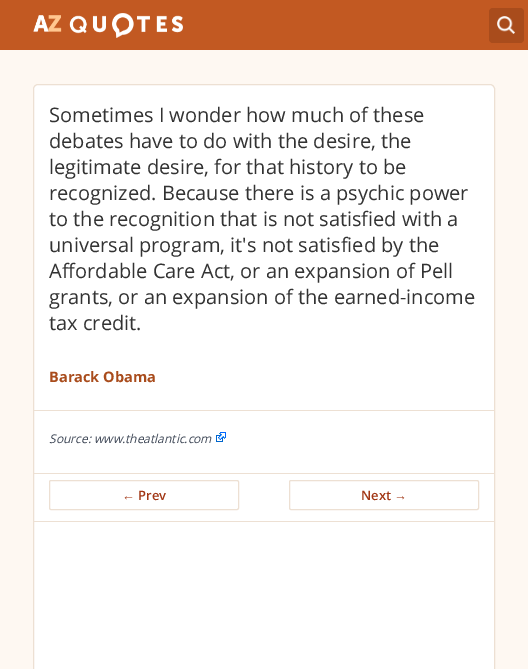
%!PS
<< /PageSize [528 669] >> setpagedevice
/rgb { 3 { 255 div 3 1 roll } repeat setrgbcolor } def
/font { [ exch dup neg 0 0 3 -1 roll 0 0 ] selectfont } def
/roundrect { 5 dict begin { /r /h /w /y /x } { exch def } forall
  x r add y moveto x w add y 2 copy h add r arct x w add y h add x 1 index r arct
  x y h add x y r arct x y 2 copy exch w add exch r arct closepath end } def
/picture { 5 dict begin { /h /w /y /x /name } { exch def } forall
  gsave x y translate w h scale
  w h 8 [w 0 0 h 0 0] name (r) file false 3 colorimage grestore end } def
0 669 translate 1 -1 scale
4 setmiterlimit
254 248 242 rgb
0 0 528 669 rectfill
194 89 34 rgb
0 0 528 50 rectfill
(img/1.rgb) 33 13 150 25 picture
169 76 28 rgb
489 8 35 35 4 roundrect fill
(img/2.rgb) 497 16 18 18 picture
255 255 255 rgb
33.5 84.5 461 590 4.5 roundrect gsave fill grestore
237 224 211 rgb
stroke
34 410 460 1 rectfill
(img/3.rgb) 216 432 10 10 picture
34 473 460 1 rectfill
49.5 480.5 189 29 1.5 roundrect stroke
289.5 480.5 189 29 1.5 roundrect stroke
34 521 460 1 rectfill
/OpenSans-Regular 20 font
51 51 51 rgb
[
  [(Sometimes I wonder how much of these) 49 122]
  [(debates have to do with the desire, the) 49 148]
  [(legitimate desire, for that history to be) 49 174]
  [(recognized. Because there is a psychic power) 49 200]
  [(to the recognition that is not satisfied with a) 49 226]
  [(universal program, it's not satisfied by the) 49 252]
  [(Affordable Care Act, or an expansion of Pell) 49 278]
  [(grants, or an expansion of the earned-income) 49 304]
  [(tax credit.) 49 330]
] { aload pop moveto show } forall
/OpenSans-Bold 14.5 font
169 76 28 rgb
49 382 moveto (Barack Obama) show
/OpenSans-Italic 12 font
63 72 87 rgb
49 443 moveto (Source: www.theatlantic.com) show
/LiberationSans-Bold 13 font
162 55 21 rgb
122 500 moveto (←) show
/OpenSans-SemiBold 13 font
138 500 moveto (Prev) show
361 500 moveto (Next) show
/LiberationSans-Bold 13 font
394 500 moveto (→) show
showpage
